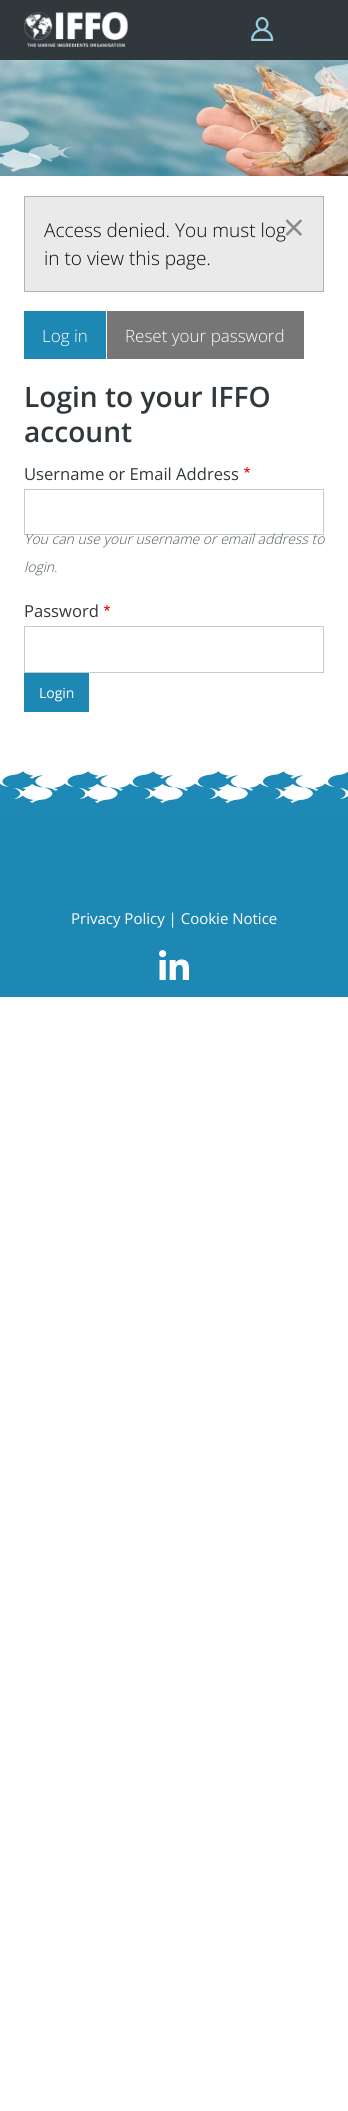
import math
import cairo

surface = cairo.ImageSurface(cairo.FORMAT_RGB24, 348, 2111)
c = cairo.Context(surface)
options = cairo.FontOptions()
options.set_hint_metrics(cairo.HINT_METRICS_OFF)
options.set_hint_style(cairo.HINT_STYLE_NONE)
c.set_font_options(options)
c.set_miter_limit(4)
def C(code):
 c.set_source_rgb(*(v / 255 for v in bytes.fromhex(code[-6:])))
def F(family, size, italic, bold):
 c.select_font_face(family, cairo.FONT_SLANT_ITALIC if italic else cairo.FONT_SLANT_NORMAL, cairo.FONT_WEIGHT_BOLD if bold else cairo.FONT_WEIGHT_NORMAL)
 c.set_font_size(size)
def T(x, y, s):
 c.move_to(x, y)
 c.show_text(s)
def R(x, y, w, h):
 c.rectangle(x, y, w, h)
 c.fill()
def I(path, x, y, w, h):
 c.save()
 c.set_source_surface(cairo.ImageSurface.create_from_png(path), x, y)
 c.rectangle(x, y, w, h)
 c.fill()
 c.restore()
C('ffffff')
c.paint()
C('30383c')
R(0,0,348,60)
I('1.png',24,11,104,36)
I('2.png',251,17,23,24)
I('3.png',0,60,348,116)
C('eaeaea')
c.rectangle(24.5,196.5,299,95)
c.fill_preserve()
C('b2b2b2')
c.set_line_width(1)
c.stroke()
F('Open Sans Light',19,0,0)
C('0a0a0a')
T(44,237,'Access denied. You must log')
F('Open Sans',38,0,0)
C('8a8a8a')
T(283,241,'×')
F('Open Sans Light',19,0,0)
C('0a0a0a')
T(44,265,'in to view this page.')
C('1e88b5')
R(24,311,82,48)
F('Open Sans Light',17,0,0)
C('ffffff')
T(42,342,'Log in')
C('767676')
R(107,311,197,48)
C('ffffff')
T(125,342,'Reset your password')
F('Open Sans SemiBold',28.1,0,0)
C('30383c')
T(24,407,'Login to your IFFO')
T(24,442,'account')
F('Open Sans',16.6,0,0)
T(24,480,'Username or Email Address')
I('4.png',244,467,6,6)
c.rectangle(24.5,489.5,299,45)
C('cacaca')
c.stroke()
F('Open Sans Light',14,1,0)
C('49585c')
T(24,544,'You can use your username or email address to')
T(24,572,'login.')
F('Open Sans',16.6,0,0)
C('30383c')
T(24,617,'Password')
I('4.png',104,605,6,6)
c.rectangle(24.5,626.5,299,46)
C('cacaca')
c.stroke()
C('1e88b5')
R(24,673,65,39)
F('Open Sans',14,0,0)
C('ffffff')
T(39,698,'Login')
I('5.png',0,771,348,40)
C('1e88b5')
R(0,811,348,186)
F('Open Sans',15,0,0)
C('ffffff')
T(71,924,'Privacy Policy | Cookie Notice')
I('6.png',159,950,30,30)
surface.write_to_png('o.png')
